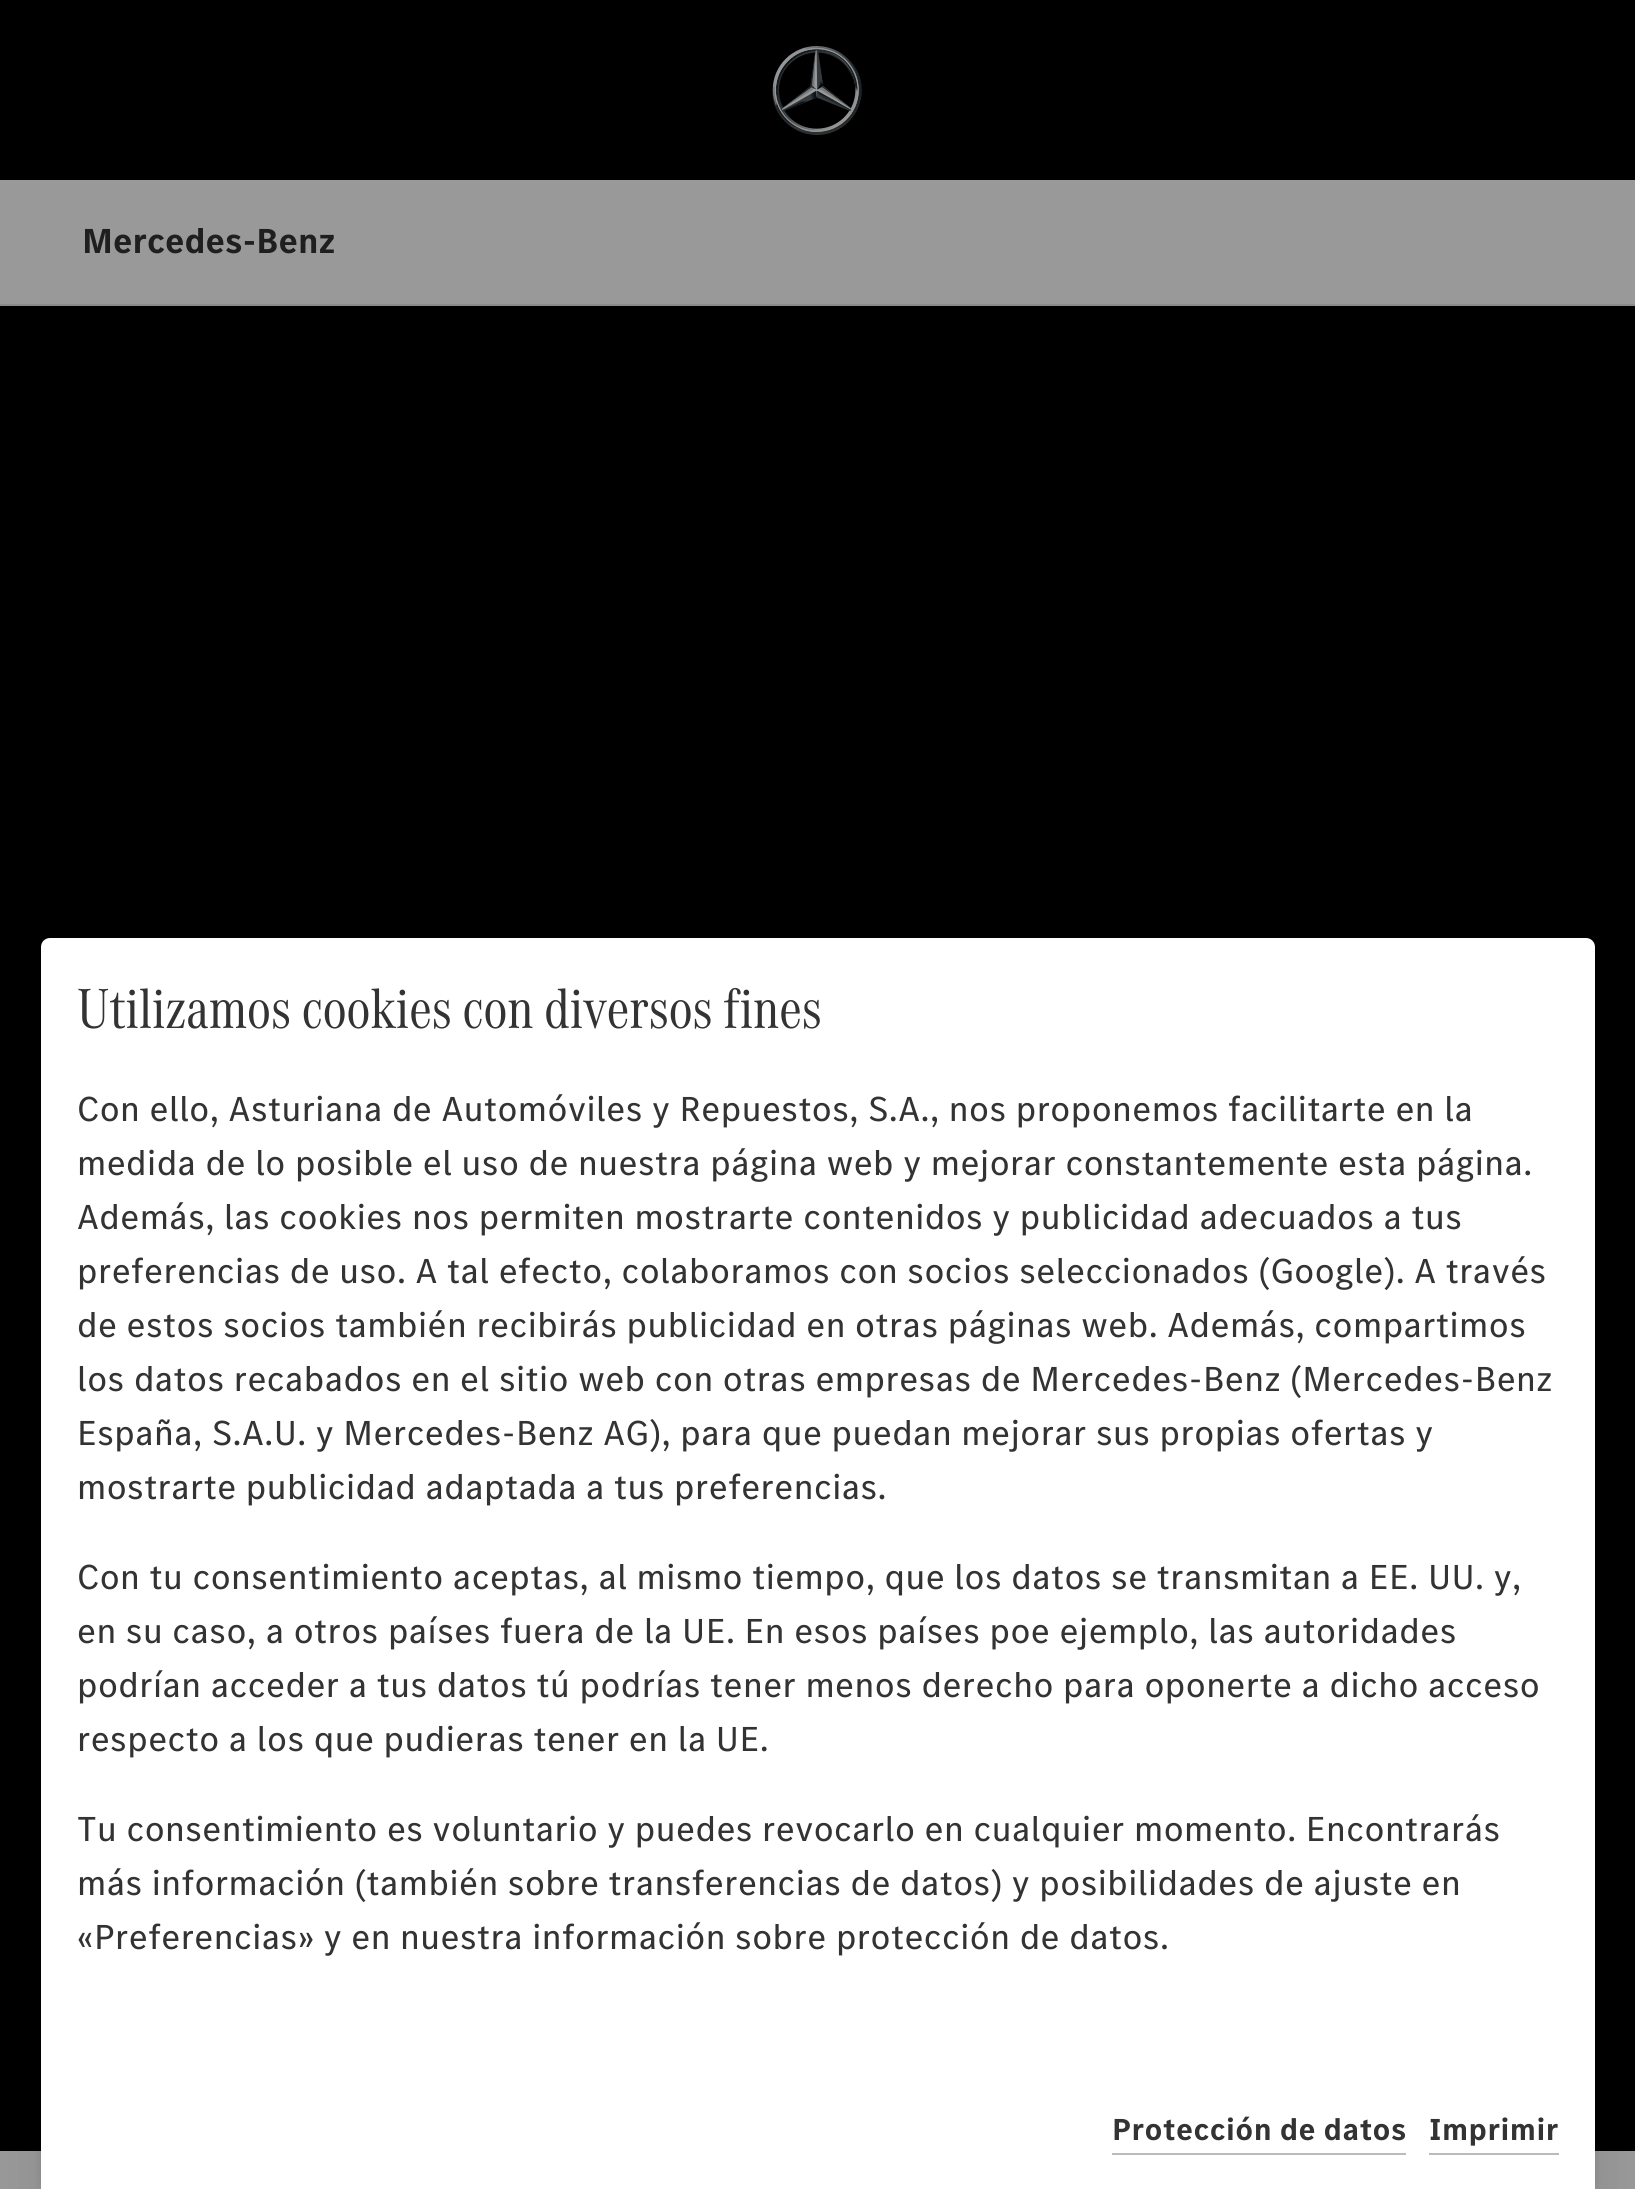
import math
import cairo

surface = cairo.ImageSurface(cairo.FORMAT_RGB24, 1635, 2189)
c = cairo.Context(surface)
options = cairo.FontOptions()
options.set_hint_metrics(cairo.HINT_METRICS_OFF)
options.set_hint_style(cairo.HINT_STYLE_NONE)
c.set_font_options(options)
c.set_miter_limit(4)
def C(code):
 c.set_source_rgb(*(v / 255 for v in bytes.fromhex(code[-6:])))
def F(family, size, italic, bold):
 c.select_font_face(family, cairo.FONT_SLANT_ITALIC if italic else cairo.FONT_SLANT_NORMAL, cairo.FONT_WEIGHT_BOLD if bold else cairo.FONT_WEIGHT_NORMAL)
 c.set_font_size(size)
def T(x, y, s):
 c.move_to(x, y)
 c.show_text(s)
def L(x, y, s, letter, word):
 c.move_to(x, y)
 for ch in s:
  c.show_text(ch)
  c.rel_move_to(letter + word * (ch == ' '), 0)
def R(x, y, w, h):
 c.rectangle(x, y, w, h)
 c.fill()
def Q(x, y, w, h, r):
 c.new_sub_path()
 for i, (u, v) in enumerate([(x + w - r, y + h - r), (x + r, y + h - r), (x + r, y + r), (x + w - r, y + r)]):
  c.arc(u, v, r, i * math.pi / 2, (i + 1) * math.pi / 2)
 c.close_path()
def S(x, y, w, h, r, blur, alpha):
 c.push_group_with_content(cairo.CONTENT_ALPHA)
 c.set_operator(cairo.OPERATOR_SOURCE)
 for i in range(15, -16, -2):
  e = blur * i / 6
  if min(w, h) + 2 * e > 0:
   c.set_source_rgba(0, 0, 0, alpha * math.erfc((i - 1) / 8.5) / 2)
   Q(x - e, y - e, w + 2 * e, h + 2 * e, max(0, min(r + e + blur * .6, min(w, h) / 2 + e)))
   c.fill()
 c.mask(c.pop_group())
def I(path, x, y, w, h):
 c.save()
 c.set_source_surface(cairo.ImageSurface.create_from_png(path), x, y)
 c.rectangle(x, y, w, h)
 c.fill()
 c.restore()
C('999999')
c.paint()
C('000000')
R(0,0,1635,180)
I('1.png',772,46,90,89)
C('8b8b8b')
R(0,304,1635,2)
F('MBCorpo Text',36,0,1)
C('1f1f1f')
T(82,253,'Mercedes-Benz')
C('000000')
R(0,306,1635,1845)
C('000000')
S(41,974,1554,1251,9,27,.1)
S(41,938,1554,1251,9,4.5,.1)
C('ffffff')
c.new_path()
c.move_to(50,938)
c.line_to(1586,938)
c.curve_to(1591,938,1595,942,1595,947)
c.line_to(1595,2189)
c.line_to(41,2189)
c.line_to(41,947)
c.curve_to(41,942,45,938,50,938)
c.close_path()
c.fill()
F('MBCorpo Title',58.5,0,0)
C('333333')
T(77,1028,'Utilizamos cookies con diversos fines')
F('MBCorpo Text',36,0,0)
L(77,1121,'Con ello, Asturiana de Automóviles y Repuestos, S.A., nos proponemos facilitarte en la',.45,0)
L(77,1175,'medida de lo posible el uso de nuestra página web y mejorar constantemente esta página.',.45,0)
L(77,1229,'Además, las cookies nos permiten mostrarte contenidos y publicidad adecuados a tus',.45,0)
L(77,1283,'preferencias de uso. A tal efecto, colaboramos con socios seleccionados (Google). A través',.45,0)
L(77,1337,'de estos socios también recibirás publicidad en otras páginas web. Además, compartimos',.45,0)
L(77,1391,'los datos recabados en el sitio web con otras empresas de Mercedes-Benz (Mercedes-Benz',.45,0)
L(77,1445,'España, S.A.U. y Mercedes-Benz AG), para que puedan mejorar sus propias ofertas y',.45,0)
L(77,1499,'mostrarte publicidad adaptada a tus preferencias.',.45,0)
L(77,1589,'Con tu consentimiento aceptas, al mismo tiempo, que los datos se transmitan a EE. UU. y,',.45,0)
L(77,1643,'en su caso, a otros países fuera de la UE. En esos países poe ejemplo, las autoridades',.45,0)
L(77,1697,'podrían acceder a tus datos tú podrías tener menos derecho para oponerte a dicho acceso',.45,0)
L(77,1751,'respecto a los que pudieras tener en la UE.',.45,0)
L(77,1841,'Tu consentimiento es voluntario y puedes revocarlo en cualquier momento. Encontrarás',.45,0)
L(77,1895,'más información (también sobre transferencias de datos) y posibilidades de ajuste en',.45,0)
L(77,1949,'«Preferencias» y en nuestra información sobre protección de datos.',.45,0)
C('bbbbbb')
R(1112,2153,294,2)
F('MBCorpo Text',31.5,0,1)
C('333333')
L(1112,2140,'Protección de datos',.45,0)
C('bbbbbb')
R(1429,2153,130,2)
C('333333')
L(1429,2140,'Imprimir',.45,0)
surface.write_to_png('o.png')
